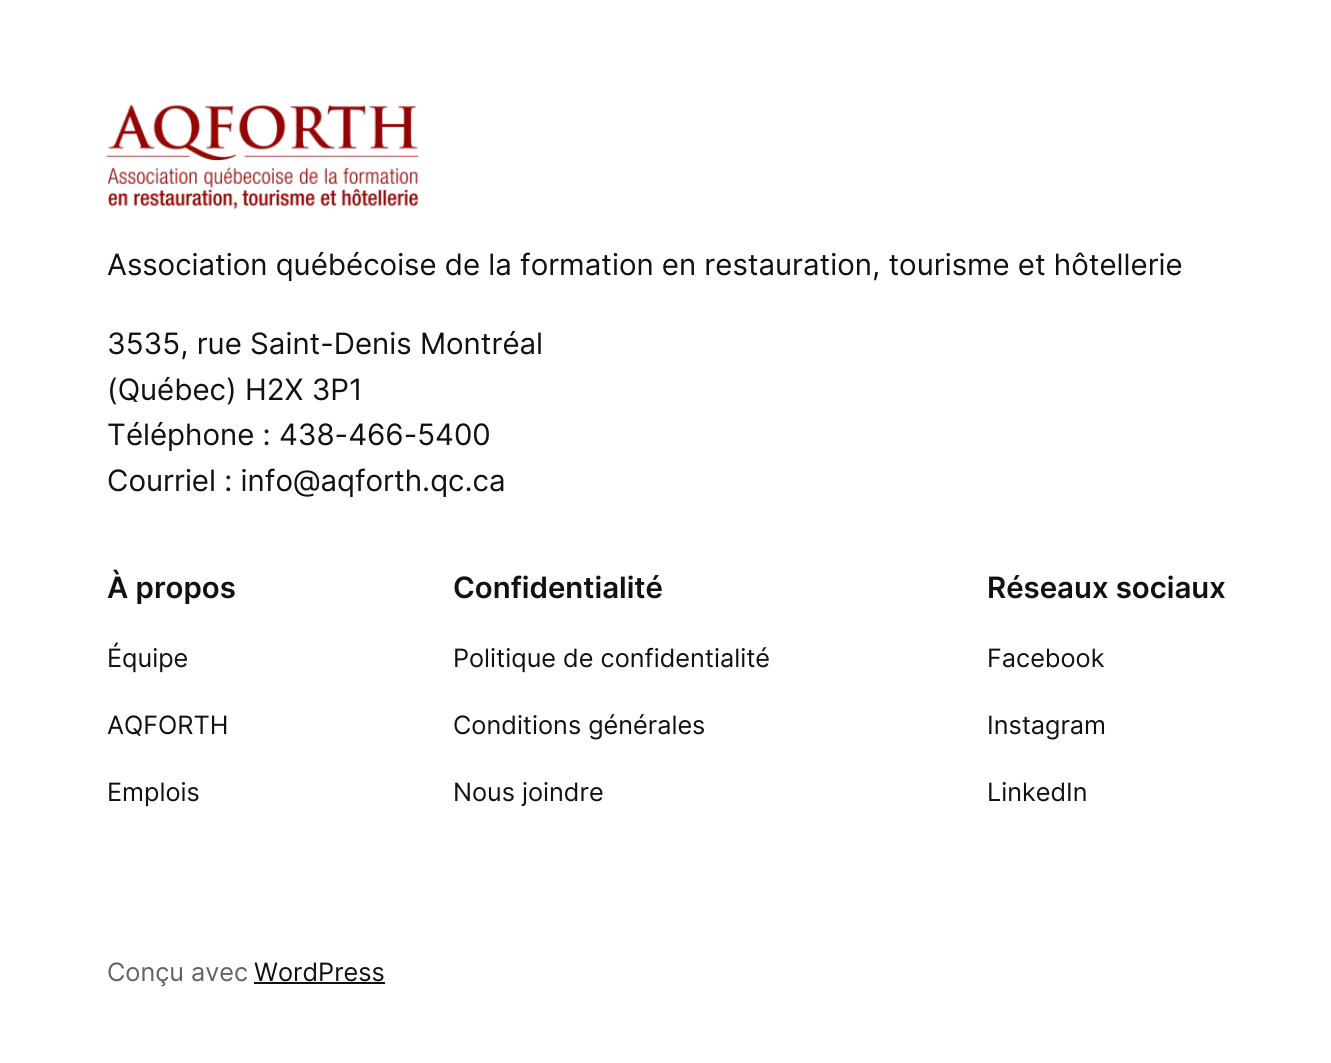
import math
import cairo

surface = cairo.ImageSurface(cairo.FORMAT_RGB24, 1331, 1063)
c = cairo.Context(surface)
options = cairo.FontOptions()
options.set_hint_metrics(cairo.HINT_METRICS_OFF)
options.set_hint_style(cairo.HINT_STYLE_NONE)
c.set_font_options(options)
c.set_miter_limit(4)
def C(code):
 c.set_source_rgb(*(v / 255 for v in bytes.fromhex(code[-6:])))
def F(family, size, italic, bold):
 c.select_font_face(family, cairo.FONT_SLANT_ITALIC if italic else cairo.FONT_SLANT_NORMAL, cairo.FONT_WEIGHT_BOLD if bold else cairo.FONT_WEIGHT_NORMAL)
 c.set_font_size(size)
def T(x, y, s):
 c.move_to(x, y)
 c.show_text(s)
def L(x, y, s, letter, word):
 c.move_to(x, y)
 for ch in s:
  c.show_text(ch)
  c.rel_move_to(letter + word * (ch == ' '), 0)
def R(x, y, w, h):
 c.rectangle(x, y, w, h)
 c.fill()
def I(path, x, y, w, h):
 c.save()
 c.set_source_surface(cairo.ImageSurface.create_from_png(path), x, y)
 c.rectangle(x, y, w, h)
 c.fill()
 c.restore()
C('ffffff')
c.paint()
I('1.png',106,105,313,104)
F('Inter',29.4,0,0)
C('111111')
L(107,275,'Association québécoise de la formation en restauration, tourisme et hôtellerie',0,-.1)
T(107,354,'3535, rue Saint-Denis Montréal')
T(107,400,'(Québec) H2X 3P1')
T(107,445,'Téléphone : 438-466-5400')
T(107,491,'Courriel : info@aqforth.qc.ca')
F('Inter SemiBold',29.4,0,0)
T(107,598,'À propos')
F('Inter',25.25,0,0)
T(107,667,'Équipe')
T(107,734,'AQFORTH')
T(107,801,'Emplois')
F('Inter SemiBold',29.4,0,0)
T(453,598,'Confidentialité')
F('Inter',25.25,0,0)
T(453,667,'Politique de confidentialité')
T(453,734,'Conditions générales')
T(453,801,'Nous joindre')
F('Inter SemiBold',29.4,0,0)
T(987,598,'Réseaux sociaux')
F('Inter',25.25,0,0)
T(987,667,'Facebook')
T(987,734,'Instagram')
T(987,801,'LinkedIn')
C('636363')
T(107,981,'Conçu avec')
C('111111')
T(254,981,'WordPress')
R(254,982,131,2)
surface.write_to_png('o.png')
